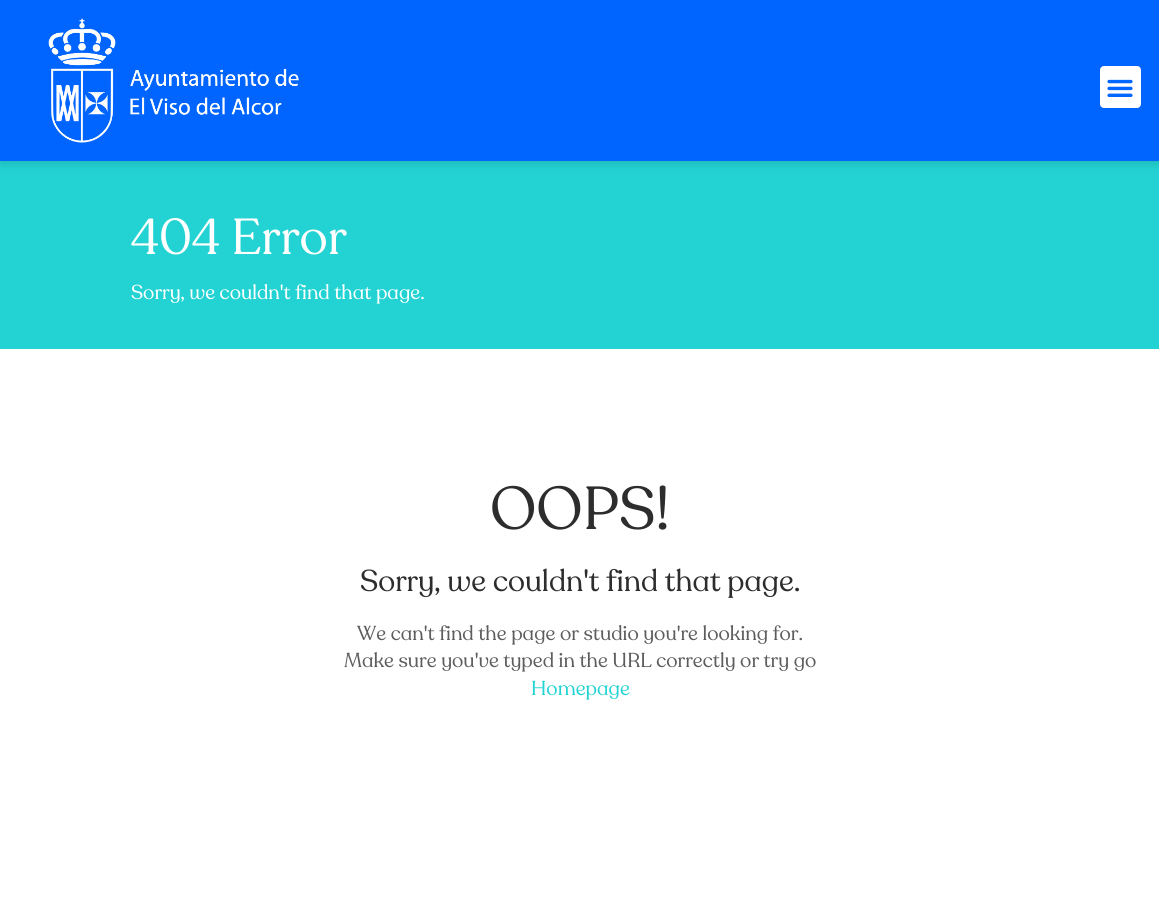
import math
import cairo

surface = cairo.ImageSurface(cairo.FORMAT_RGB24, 1159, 924)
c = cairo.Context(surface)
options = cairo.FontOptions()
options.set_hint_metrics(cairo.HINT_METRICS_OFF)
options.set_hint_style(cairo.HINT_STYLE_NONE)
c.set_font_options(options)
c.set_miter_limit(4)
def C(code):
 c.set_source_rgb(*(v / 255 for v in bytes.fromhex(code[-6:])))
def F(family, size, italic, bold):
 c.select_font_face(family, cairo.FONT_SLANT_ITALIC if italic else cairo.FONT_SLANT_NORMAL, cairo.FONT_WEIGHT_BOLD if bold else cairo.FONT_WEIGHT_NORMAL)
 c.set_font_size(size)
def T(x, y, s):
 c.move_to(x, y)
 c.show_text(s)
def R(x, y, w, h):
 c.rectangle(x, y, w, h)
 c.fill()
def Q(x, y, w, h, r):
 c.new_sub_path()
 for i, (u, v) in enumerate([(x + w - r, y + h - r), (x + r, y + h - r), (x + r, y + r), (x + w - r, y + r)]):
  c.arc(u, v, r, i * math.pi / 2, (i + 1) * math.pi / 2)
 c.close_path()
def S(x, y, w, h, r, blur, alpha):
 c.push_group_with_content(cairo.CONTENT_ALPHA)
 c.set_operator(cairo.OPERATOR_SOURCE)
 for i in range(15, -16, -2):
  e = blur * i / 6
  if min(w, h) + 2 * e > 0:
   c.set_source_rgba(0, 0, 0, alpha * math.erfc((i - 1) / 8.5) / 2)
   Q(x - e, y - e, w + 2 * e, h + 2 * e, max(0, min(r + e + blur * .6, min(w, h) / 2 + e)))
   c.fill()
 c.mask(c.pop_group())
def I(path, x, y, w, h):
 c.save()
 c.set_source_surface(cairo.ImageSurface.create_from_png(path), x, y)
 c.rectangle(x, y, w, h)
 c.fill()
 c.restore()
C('ffffff')
c.paint()
C('23d3d3')
R(0,161,1159,188)
C('000000')
S(0,0,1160,161,0,6,.21)
C('0065ff')
R(0,0,1159,161)
I('1.png',48,18,251,125)
C('ffffff')
Q(1100,66,41,42,4)
c.fill()
I('2.png',1107,79,26,18)
F('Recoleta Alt',50,0,0)
T(131,254,'404 Error')
F('Recoleta Alt',20,0,0)
T(131,299,'Sorry, we couldn\'t find that page.')
F('Recoleta Alt',60,0,0)
C('2d2d2d')
T(490,529,'OOPS!')
F('Recoleta Alt',30,0,0)
T(360,591,'Sorry, we couldn\'t find that page.')
F('Recoleta Alt',20,0,0)
C('5d5d5d')
T(357,640,'We can\'t find the page or studio you\'re looking for.')
T(344,667,'Make sure you\'ve typed in the URL correctly or try go')
C('23d3d3')
T(531,695,'Homepage')
surface.write_to_png('o.png')
